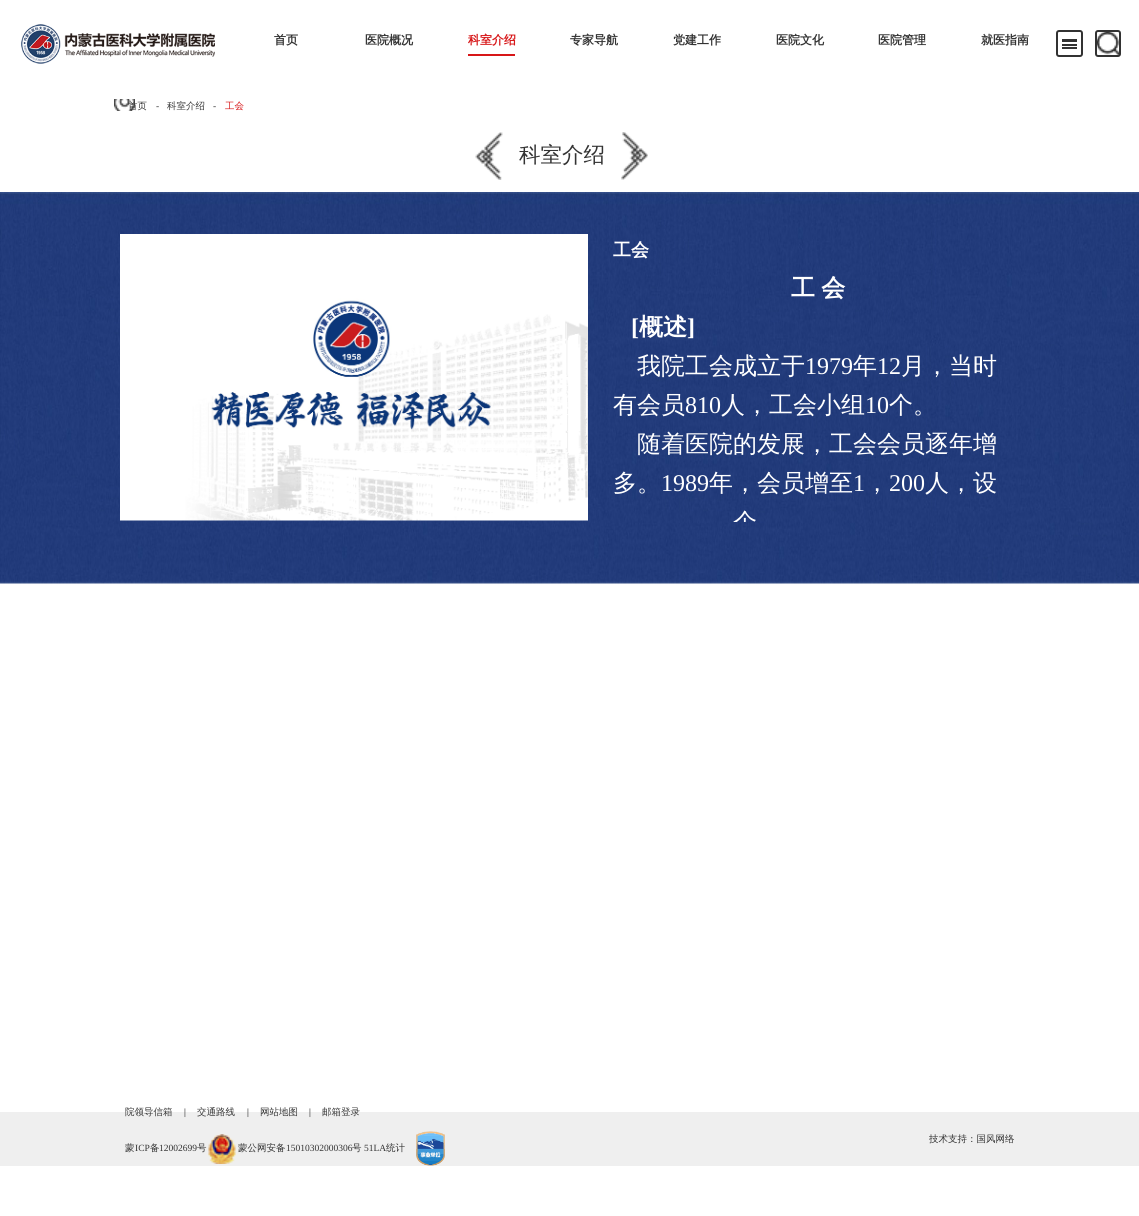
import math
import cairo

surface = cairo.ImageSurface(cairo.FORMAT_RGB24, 1139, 1216)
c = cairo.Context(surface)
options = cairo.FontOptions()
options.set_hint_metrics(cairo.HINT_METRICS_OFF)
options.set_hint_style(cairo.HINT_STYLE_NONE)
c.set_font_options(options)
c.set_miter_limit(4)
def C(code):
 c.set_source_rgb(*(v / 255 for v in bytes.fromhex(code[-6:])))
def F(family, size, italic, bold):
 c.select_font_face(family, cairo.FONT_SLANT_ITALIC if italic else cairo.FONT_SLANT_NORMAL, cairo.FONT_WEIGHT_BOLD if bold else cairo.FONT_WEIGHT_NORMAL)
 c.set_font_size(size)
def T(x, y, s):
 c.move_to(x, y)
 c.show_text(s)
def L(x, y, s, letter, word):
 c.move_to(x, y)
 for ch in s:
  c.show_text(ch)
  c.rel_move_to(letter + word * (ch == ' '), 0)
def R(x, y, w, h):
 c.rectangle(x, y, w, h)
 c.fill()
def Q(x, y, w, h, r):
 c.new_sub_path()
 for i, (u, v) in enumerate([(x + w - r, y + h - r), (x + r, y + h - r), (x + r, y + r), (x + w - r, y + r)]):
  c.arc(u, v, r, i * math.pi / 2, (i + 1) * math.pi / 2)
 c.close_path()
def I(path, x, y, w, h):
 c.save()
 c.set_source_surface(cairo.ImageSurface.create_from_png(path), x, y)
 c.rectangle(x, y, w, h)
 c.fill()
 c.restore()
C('ffffff')
c.paint()
I('1.png',21,24,194,40)
F('WenQuanYi Zen Hei',12,0,1)
C('333333')
T(274,44,'首页')
T(365,44,'医院概况')
C('d71618')
R(468,54,47,2)
T(468,44,'科室介绍')
C('333333')
T(570,44,'专家导航')
T(673,44,'党建工作')
T(776,44,'医院文化')
T(878,44,'医院管理')
T(981,44,'就医指南')
Q(1057,31,25,25,2)
C('323232')
c.stroke()
R(1062,39,15,3)
R(1062,44,15,2)
R(1062,47,15,2)
I('2.png',1097,32,24,24)
Q(1096,31,24,25,2)
c.stroke()
I('3.png',114,99,21,12)
F('WenQuanYi Zen Hei Medium',9.5,0,0)
C('333333')
T(128,109,'首页')
F('Liberation Serif',9.5,0,0)
T(156,109,'-')
F('WenQuanYi Zen Hei Medium',9.5,0,0)
T(167,109,'科室介绍')
F('Liberation Serif',9.5,0,0)
T(213,109,'-')
F('WenQuanYi Zen Hei Medium',9.5,0,0)
C('d71618')
T(225,109,'工会')
I('4.png',475,132,28,48)
F('WenQuanYi Zen Hei Medium',21.5,0,0)
C('333333')
T(519,162,'科室介绍')
I('5.png',621,132,27,48)
I('6.png',0,192,1139,392)
I('7.png',120,234,468,287)
F('WenQuanYi Zen Hei',18,0,1)
C('ffffff')
T(613,256,'工会')
F('WenQuanYi Zen Hei',24,0,1)
L(791,296,'工 会',0,-1)
F('Liberation Serif',24,0,1)
T(631,335,'[')
F('WenQuanYi Zen Hei',24,0,1)
T(639,335,'概述')
F('Liberation Serif',24,0,1)
T(687,335,']')
F('WenQuanYi Zen Hei Medium',24,0,0)
T(637,374,'我院工会成立于')
F('Liberation Serif',24,0,0)
T(805,374,'1979')
F('WenQuanYi Zen Hei Medium',24,0,0)
T(853,374,'年')
F('Liberation Serif',24,0,0)
T(877,374,'12')
F('WenQuanYi Zen Hei Medium',24,0,0)
T(901,374,'月，当时')
T(613,413,'有会员')
F('Liberation Serif',24,0,0)
T(685,413,'810')
F('WenQuanYi Zen Hei Medium',24,0,0)
T(721,413,'人，工会小组')
F('Liberation Serif',24,0,0)
T(865,413,'10')
F('WenQuanYi Zen Hei Medium',24,0,0)
T(889,413,'个。')
T(637,452,'随着医院的发展，工会会员逐年增')
T(613,491,'多。')
F('Liberation Serif',24,0,0)
T(661,491,'1989')
F('WenQuanYi Zen Hei Medium',24,0,0)
T(709,491,'年，会员增至')
F('Liberation Serif',24,0,0)
T(853,491,'1')
F('WenQuanYi Zen Hei Medium',24,0,0)
T(865,491,'，')
F('Liberation Serif',24,0,0)
T(889,491,'200')
F('WenQuanYi Zen Hei Medium',24,0,0)
T(925,491,'人，设')
c.save()
c.rectangle(614,267,406,255)
c.clip()
T(733,530,'个')
c.restore()
C('efefef')
R(0,1112,1139,54)
F('WenQuanYi Zen Hei Medium',9.5,0,0)
C('333333')
T(125,1115,'院领导信箱')
F('Liberation Serif',9.5,0,0)
C('000000')
T(184,1115,'|')
F('WenQuanYi Zen Hei Medium',9.5,0,0)
C('333333')
T(197,1115,'交通路线')
F('Liberation Serif',9.5,0,0)
C('000000')
T(247,1115,'|')
F('WenQuanYi Zen Hei Medium',9.5,0,0)
C('333333')
T(260,1115,'网站地图')
F('Liberation Serif',9.5,0,0)
C('000000')
T(309,1115,'|')
F('WenQuanYi Zen Hei Medium',9.5,0,0)
C('333333')
T(322,1115,'邮箱登录')
T(125,1151,'蒙')
F('Liberation Serif',9.5,0,0)
T(135,1151,'ICP')
F('WenQuanYi Zen Hei Medium',9.5,0,0)
T(150,1151,'备')
F('Liberation Serif',9.5,0,0)
T(159,1151,'12002699')
F('WenQuanYi Zen Hei Medium',9.5,0,0)
T(197,1151,'号')
I('8.png',208,1134,28,30)
T(238,1151,'蒙公网安备')
F('Liberation Serif',9.5,0,0)
T(286,1151,'15010302000306')
F('WenQuanYi Zen Hei Medium',9.5,0,0)
T(352,1151,'号')
F('Liberation Serif',9.5,0,0)
T(364,1151,'51LA')
F('WenQuanYi Zen Hei Medium',9.5,0,0)
T(386,1151,'统计')
I('9.png',416,1131,29,35)
T(929,1142,'技术支持：国风网络')
surface.write_to_png('o.png')
